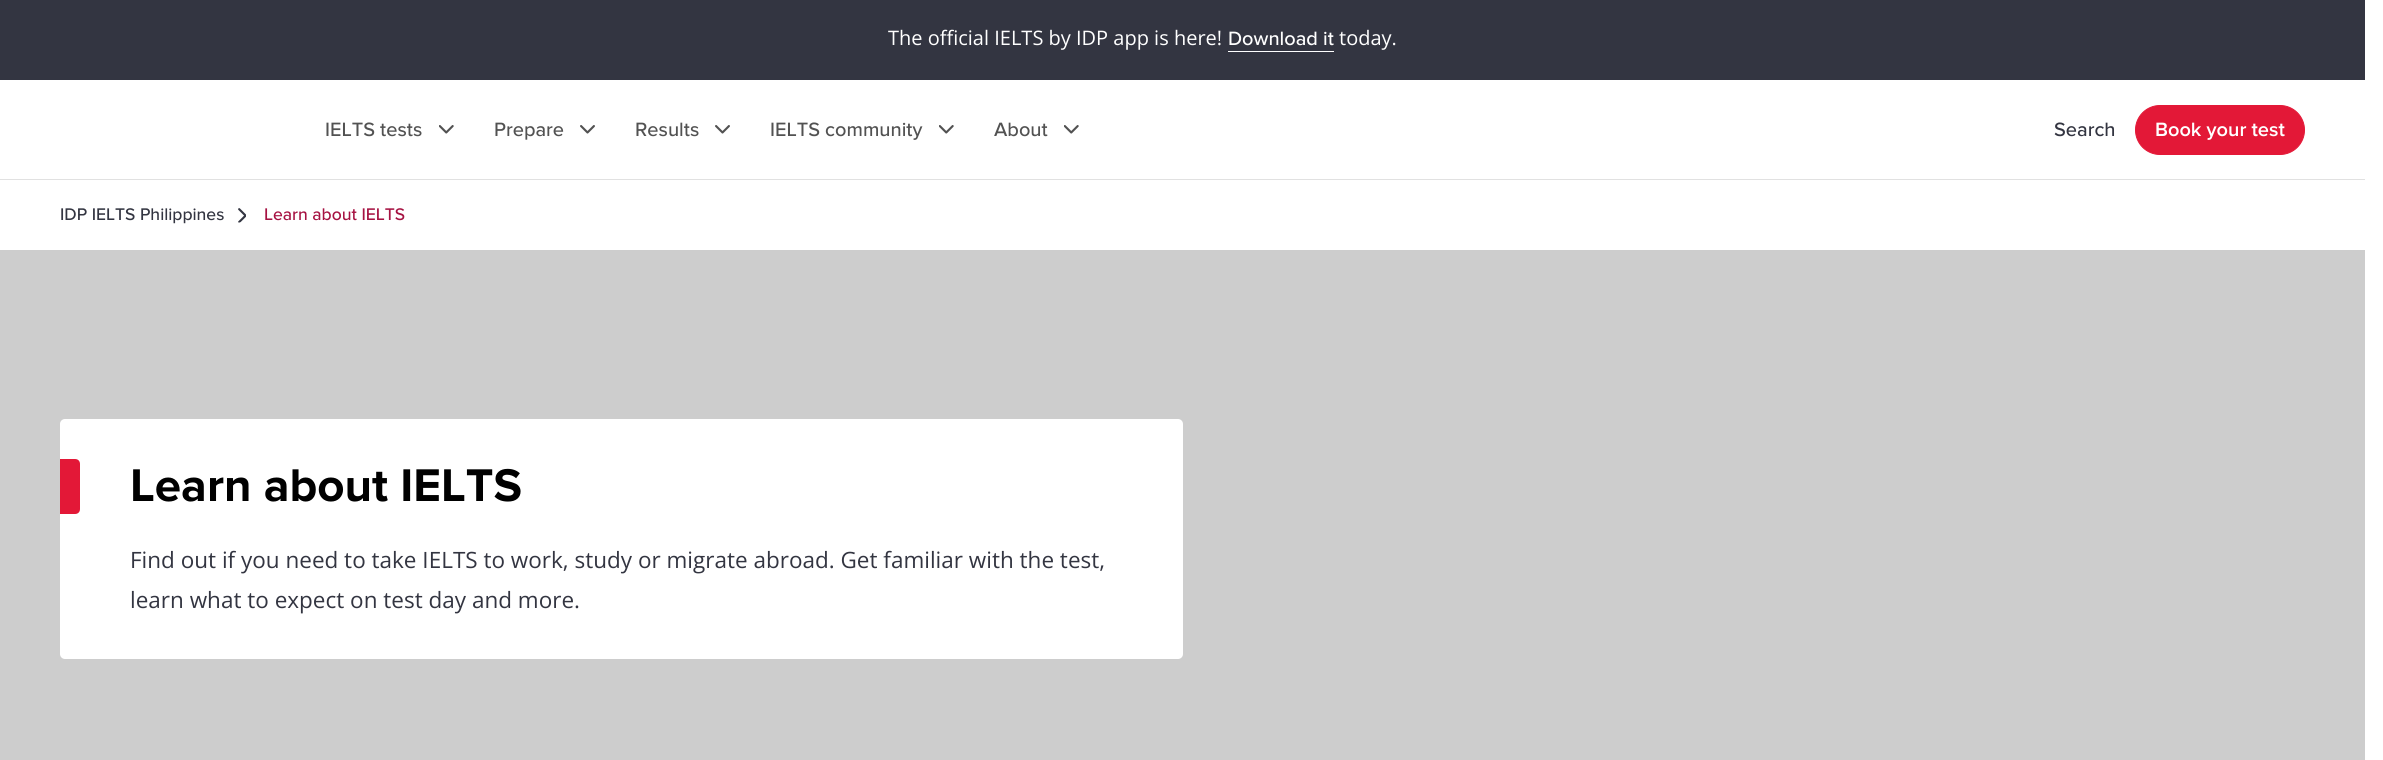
import math
import cairo

surface = cairo.ImageSurface(cairo.FORMAT_RGB24, 2383, 760)
c = cairo.Context(surface)
options = cairo.FontOptions()
options.set_hint_metrics(cairo.HINT_METRICS_OFF)
options.set_hint_style(cairo.HINT_STYLE_NONE)
c.set_font_options(options)
c.set_miter_limit(4)
def C(code):
 c.set_source_rgb(*(v / 255 for v in bytes.fromhex(code[-6:])))
def F(family, size, italic, bold):
 c.select_font_face(family, cairo.FONT_SLANT_ITALIC if italic else cairo.FONT_SLANT_NORMAL, cairo.FONT_WEIGHT_BOLD if bold else cairo.FONT_WEIGHT_NORMAL)
 c.set_font_size(size)
def T(x, y, s):
 c.move_to(x, y)
 c.show_text(s)
def R(x, y, w, h):
 c.rectangle(x, y, w, h)
 c.fill()
def Q(x, y, w, h, r):
 c.new_sub_path()
 for i, (u, v) in enumerate([(x + w - r, y + h - r), (x + r, y + h - r), (x + r, y + r), (x + w - r, y + r)]):
  c.arc(u, v, r, i * math.pi / 2, (i + 1) * math.pi / 2)
 c.close_path()
def I(path, x, y, w, h):
 c.save()
 c.set_source_surface(cairo.ImageSurface.create_from_png(path), x, y)
 c.rectangle(x, y, w, h)
 c.fill()
 c.restore()
C('ffffff')
c.paint()
C('333541')
R(0,0,2365,80)
F('Open Sans',20,0,0)
C('ffffff')
T(888,45,'The official IELTS by IDP app is here!')
R(1228,51,106,1)
F('Proxima Nova Medium',20,0,0)
T(1228,45,'Download it')
F('Open Sans',20,0,0)
T(1339,45,'today.')
C('e1e1e1')
R(0,179,2365,1)
F('Proxima Nova Medium',20,0,0)
C('525252')
T(325,136,'IELTS tests')
I('1.png',439,125,15,9)
T(494,136,'Prepare')
I('2.png',580,125,15,9)
T(635,136,'Results')
I('2.png',715,125,15,9)
T(770,136,'IELTS community')
I('1.png',939,125,15,9)
T(994,136,'About')
I('1.png',1064,125,15,9)
C('333541')
T(2054,136,'Search')
C('e31837')
Q(2135.5,105.5,169,49,24.5)
c.fill_preserve()
c.set_line_width(1)
c.stroke()
F('Proxima Nova SemiBold',20,0,0)
C('ffffff')
T(2155,136,'Book your test')
F('Proxima Nova Medium',17.5,0,0)
C('333541')
T(60,220,'IDP IELTS Philippines')
I('3.png',238,208,8,15)
C('a61242')
T(264,220,'Learn about IELTS')
C('cdcdcd')
R(0,250,2365,510)
C('ffffff')
Q(60,419,1123,240,5)
c.fill()
C('e31837')
c.new_path()
c.move_to(60,459)
c.line_to(75,459)
c.curve_to(78,459,80,461,80,464)
c.line_to(80,509)
c.curve_to(80,512,78,514,75,514)
c.line_to(60,514)
c.close_path()
c.fill()
F('Proxima Nova',47.5,0,1)
C('000000')
T(130,501,'Learn about IELTS')
F('Open Sans',22.5,0,0)
C('333541')
T(130,568,'Find out if you need to take IELTS to work, study or migrate abroad. Get familiar with the test,')
T(130,608,'learn what to expect on test day and more.')
surface.write_to_png('o.png')
